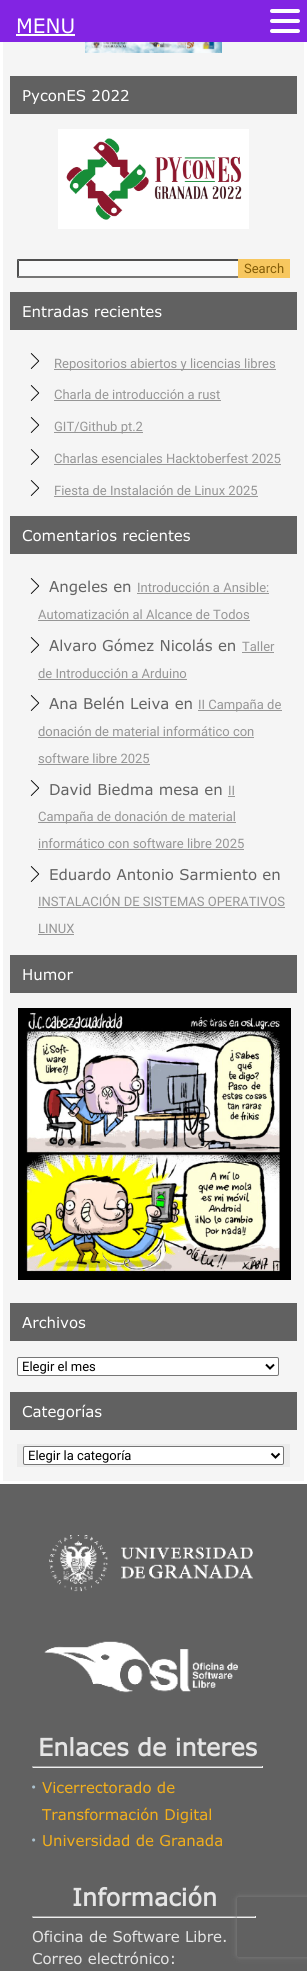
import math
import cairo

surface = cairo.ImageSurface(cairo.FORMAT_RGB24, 307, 1971)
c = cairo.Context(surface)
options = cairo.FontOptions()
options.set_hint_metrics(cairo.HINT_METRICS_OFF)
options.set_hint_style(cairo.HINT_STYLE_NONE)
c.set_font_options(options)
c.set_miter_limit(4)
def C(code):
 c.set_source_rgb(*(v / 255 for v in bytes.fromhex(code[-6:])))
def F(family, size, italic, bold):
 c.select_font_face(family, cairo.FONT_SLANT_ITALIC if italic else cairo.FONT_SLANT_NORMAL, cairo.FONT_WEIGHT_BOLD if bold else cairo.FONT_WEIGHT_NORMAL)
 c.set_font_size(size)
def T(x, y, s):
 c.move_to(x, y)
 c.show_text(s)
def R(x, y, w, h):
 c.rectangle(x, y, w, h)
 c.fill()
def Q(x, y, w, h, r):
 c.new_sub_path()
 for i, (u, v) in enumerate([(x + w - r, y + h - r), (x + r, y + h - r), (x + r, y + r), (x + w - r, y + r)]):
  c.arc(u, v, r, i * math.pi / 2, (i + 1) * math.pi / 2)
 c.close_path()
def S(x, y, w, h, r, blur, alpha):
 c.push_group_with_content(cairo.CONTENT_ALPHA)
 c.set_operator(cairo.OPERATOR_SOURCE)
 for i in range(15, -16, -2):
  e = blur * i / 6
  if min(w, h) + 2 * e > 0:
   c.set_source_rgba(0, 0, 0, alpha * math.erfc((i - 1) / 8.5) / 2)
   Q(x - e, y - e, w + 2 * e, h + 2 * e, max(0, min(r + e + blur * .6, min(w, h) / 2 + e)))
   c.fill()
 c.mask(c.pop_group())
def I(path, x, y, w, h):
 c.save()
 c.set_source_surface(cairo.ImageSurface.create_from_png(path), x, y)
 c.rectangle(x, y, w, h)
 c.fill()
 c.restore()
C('ffffff')
c.paint()
C('8224e3')
R(0,0,307,42)
F('Verdana',20,0,0)
C('ffffff')
T(16,33,'MENU')
R(16,34,59,2)
Q(270,9,30,4,2)
c.fill()
Q(270,19,30,4,2)
c.fill()
Q(270,29,30,4,2)
c.fill()
C('f5f5f5')
R(3,42,301,1439)
I('1.png',85,42,137,11)
C('616161')
R(10,76,287,38)
F('Verdana',15,0,0)
C('ffffff')
T(22,101,'PyconES 2022')
I('2.png',58,129,191,100)
C('f9fafb')
R(17,259,221,19)
C('4f4f4f')
c.new_path()
c.move_to(17,259)
c.line_to(290,259)
c.line_to(288,261)
c.line_to(19,261)
c.close_path()
c.fill()
C('767676')
c.new_path()
c.move_to(290,278)
c.line_to(17,278)
c.line_to(19,276)
c.line_to(288,276)
c.close_path()
c.fill()
C('4f4f4f')
c.new_path()
c.move_to(17,278)
c.line_to(17,259)
c.line_to(19,261)
c.line_to(19,276)
c.close_path()
c.fill()
C('f7c75f')
R(238,259,52,19)
F('Roboto',13,0,0)
C('835c07')
T(244,273,'Search')
C('616161')
R(10,292,287,38)
F('Verdana',15,0,0)
C('ffffff')
T(22,317,'Entradas recientes')
I('3.png',30,353,10,16)
C('969696')
R(54,369,222,1)
F('Roboto',13,0,0)
T(54,368,'Repositorios abiertos y licencias libres')
I('3.png',30,385,10,16)
T(54,399,'Charla de introducción a rust')
R(54,400,167,1)
I('3.png',30,417,10,16)
R(54,432,89,1)
T(54,431,'GIT/Github pt.2')
I('3.png',30,449,10,16)
T(54,463,'Charlas esenciales Hacktoberfest 2025')
R(54,464,227,1)
I('3.png',30,480,10,16)
T(54,495,'Fiesta de Instalación de Linux 2025')
R(54,496,204,1)
C('616161')
R(10,516,287,38)
F('Verdana',15,0,0)
C('ffffff')
T(22,541,'Comentarios recientes')
I('3.png',30,578,10,16)
C('636363')
T(49,592,'Angeles en')
F('Roboto',13,0,0)
C('969696')
T(137,592,'Introducción a Ansible:')
R(137,593,132,1)
T(38,619,'Automatización al Alcance de Todos')
R(38,620,212,1)
I('3.png',30,637,10,16)
F('Verdana',15,0,0)
C('636363')
T(49,651,'Alvaro Gómez Nicolás en')
F('Roboto',13,0,0)
C('969696')
T(242,651,'Taller')
R(242,652,32,1)
T(38,678,'de Introducción a Arduino')
R(38,679,149,1)
I('3.png',30,695,10,16)
F('Verdana',15,0,0)
C('636363')
T(49,709,'Ana Belén Leiva en')
C('969696')
R(198,710,84,1)
F('Roboto',13,0,0)
T(198,709,'II Campaña de')
T(38,736,'donación de material informático con')
R(38,737,216,1)
T(38,763,'software libre 2025')
R(38,764,112,1)
I('3.png',30,780,10,16)
F('Verdana',15,0,0)
C('636363')
T(49,795,'David Biedma mesa en')
F('Roboto',13,0,0)
C('969696')
T(228,795,'II')
R(228,796,7,1)
R(38,822,198,1)
T(38,821,'Campaña de donación de material')
T(38,848,'informático con software libre 2025')
R(38,849,206,1)
I('3.png',30,866,10,16)
F('Verdana',15,0,0)
C('636363')
T(49,880,'Eduardo Antonio Sarmiento en')
F('Roboto',13,0,0)
C('969696')
T(38,906,'INSTALACIÓN DE SISTEMAS OPERATIVOS')
R(38,907,247,1)
T(38,933,'LINUX')
R(38,934,36,1)
C('616161')
R(10,955,287,38)
F('Verdana',15,0,0)
C('ffffff')
T(22,980,'Humor')
I('4.png',18,1008,273,272)
C('616161')
R(10,1303,287,38)
C('ffffff')
T(22,1328,'Archivos')
Q(17.5,1357.5,261,18,1.5)
c.fill_preserve()
C('767676')
c.set_line_width(1)
c.stroke()
c.new_path()
c.move_to(266,1364.5)
c.line_to(270,1368.5)
c.line_to(274,1364.5)
C('000000')
c.set_line_width(2)
c.stroke()
F('Roboto',13,0,0)
T(22,1371,'Elegir el mes')
C('616161')
R(10,1392,287,38)
F('Verdana',15,0,0)
C('ffffff')
T(22,1417,'Categorías')
C('ececec')
R(17,1444,273,23)
C('ffffff')
Q(23.5,1446.5,260,18,1.5)
c.fill_preserve()
C('767676')
c.set_line_width(1)
c.stroke()
c.new_path()
c.move_to(271.5,1453.5)
c.line_to(275.5,1457.5)
c.line_to(279.5,1453.5)
C('000000')
c.set_line_width(2)
c.stroke()
F('Roboto',13,0,0)
T(28,1460,'Elegir la categoría')
C('616161')
R(0,1484,307,487)
I('5.png',49,1535,204,57)
I('6.png',44,1641,194,52)
F('Verdana',24,0,1)
C('e5e5e5')
T(38,1756,'Enlaces de interes')
C('9f9f9f')
R(32,1766,231,1)
C('eeeeee')
R(262,1766,1,2)
R(32,1767,231,1)
C('9f9f9f')
R(32,1766,1,2)
I('7.png',32,1785,4,4)
F('Verdana',15,0,0)
C('f3af1b')
T(42,1793,'Vicerrectorado de')
T(42,1820,'Transformación Digital')
I('7.png',32,1838,4,4)
T(42,1846,'Universidad de Granada')
F('Verdana',24,0,1)
C('e5e5e5')
T(72,1906,'Información')
C('9f9f9f')
R(32,1916,224,1)
C('eeeeee')
R(255,1916,1,2)
R(32,1917,224,1)
C('9f9f9f')
R(32,1916,1,2)
F('Verdana',15,0,0)
C('e5e5e5')
T(32,1942,'Oficina de Software Libre.')
T(32,1964,'Correo electrónico:')
c.save()
c.set_fill_rule(cairo.FILL_RULE_EVEN_ODD)
c.new_path()
c.move_to(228,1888)
c.line_to(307,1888)
c.line_to(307,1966)
c.line_to(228,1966)
c.close_path()
c.move_to(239,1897)
c.line_to(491,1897)
c.curve_to(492,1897,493,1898,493,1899)
c.line_to(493,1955)
c.curve_to(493,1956,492,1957,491,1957)
c.line_to(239,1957)
c.curve_to(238,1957,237,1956,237,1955)
c.line_to(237,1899)
c.curve_to(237,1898,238,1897,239,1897)
c.close_path()
c.clip()
C('808080')
S(237,1897,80,60,2,2.5,1)
c.restore()
surface.write_to_png('o.png')
